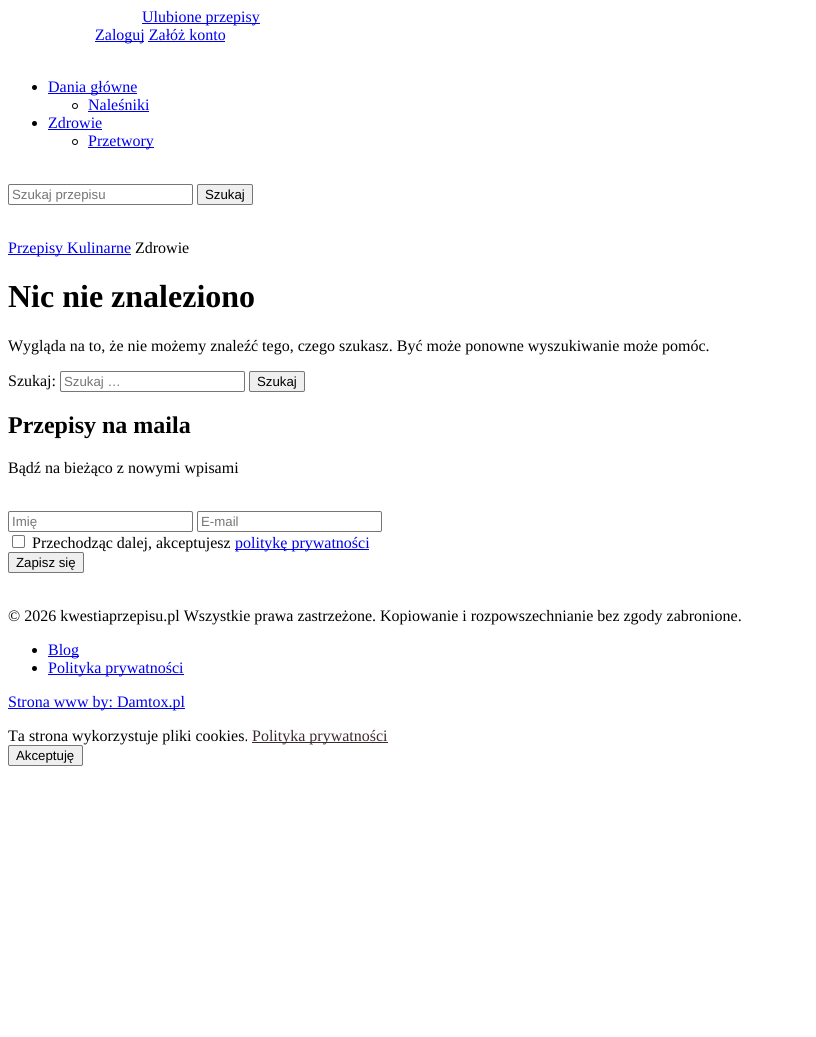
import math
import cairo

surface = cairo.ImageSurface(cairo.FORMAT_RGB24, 816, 1037)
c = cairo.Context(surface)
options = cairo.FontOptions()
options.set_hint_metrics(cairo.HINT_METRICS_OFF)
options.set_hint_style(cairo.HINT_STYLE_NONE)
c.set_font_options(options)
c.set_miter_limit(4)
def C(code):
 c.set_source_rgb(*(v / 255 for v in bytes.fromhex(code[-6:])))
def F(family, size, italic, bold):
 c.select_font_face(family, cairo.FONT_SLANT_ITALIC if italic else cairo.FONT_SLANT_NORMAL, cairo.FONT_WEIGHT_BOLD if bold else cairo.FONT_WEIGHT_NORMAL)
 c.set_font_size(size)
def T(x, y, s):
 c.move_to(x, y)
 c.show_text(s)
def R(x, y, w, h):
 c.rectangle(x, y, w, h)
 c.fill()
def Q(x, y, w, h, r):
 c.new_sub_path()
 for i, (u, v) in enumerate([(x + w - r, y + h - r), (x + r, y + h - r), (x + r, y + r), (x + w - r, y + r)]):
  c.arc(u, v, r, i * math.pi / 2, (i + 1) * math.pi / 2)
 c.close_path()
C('ffffff')
c.paint()
C('0000ee')
R(142,23,118,1)
F('Liberation Serif',16,0,0)
T(142,22,'Ulubione przepisy')
R(95,41,49,1)
T(95,40,'Zaloguj Załóż konto')
R(148,41,77,1)
C('000000')
c.new_path()
c.arc(34.5,87.5,2.5,0,2 * math.pi)
c.fill()
C('0000ee')
R(48,93,89,1)
T(48,92,'Dania główne')
c.new_path()
c.arc(75,106,2.5,0,2 * math.pi)
C('000000')
c.set_line_width(1)
c.stroke()
C('0000ee')
T(88,110,'Naleśniki')
R(88,111,61,1)
C('000000')
c.new_path()
c.arc(34.5,123.5,2.5,0,2 * math.pi)
c.fill()
C('0000ee')
T(48,128,'Zdrowie')
R(48,129,54,1)
c.new_path()
c.arc(75,142,2.5,0,2 * math.pi)
C('000000')
c.stroke()
C('0000ee')
R(88,147,66,1)
T(88,146,'Przetwory')
Q(8.5,184.5,184,20,1.5)
C('767676')
c.stroke()
F('Liberation Sans',13.25,0,0)
C('757575')
T(12,199,'Szukaj przepisu')
C('efefef')
Q(197.5,184.5,55,20,1.5)
c.fill_preserve()
C('767676')
c.stroke()
C('000000')
T(205,199,'Szukaj')
C('0000ee')
R(8,254,123,1)
F('Liberation Serif',16,0,0)
T(8,253,'Przepisy Kulinarne')
C('000000')
T(135,253,'Zdrowie')
F('Liberation Serif',32,0,1)
T(8,307,'Nic nie znaleziono')
F('Liberation Serif',16,0,0)
T(8,351,'Wygląda na to, że nie możemy znaleźć tego, czego szukasz. Być może ponowne wyszukiwanie może pomóc.')
T(8,386,'Szukaj:')
Q(60.5,371.5,184,20,1.5)
C('767676')
c.stroke()
F('Liberation Sans',13.25,0,0)
C('757575')
T(64,386,'Szukaj …')
C('efefef')
Q(249.5,371.5,55,20,1.5)
c.fill_preserve()
C('767676')
c.stroke()
C('000000')
T(257,386,'Szukaj')
F('Liberation Serif',24,0,1)
T(8,433,'Przepisy na maila')
F('Liberation Serif',16,0,0)
T(8,473,'Bądź na bieżąco z nowymi wpisami')
Q(8.5,511.5,184,20,1.5)
C('767676')
c.stroke()
F('Liberation Sans',13.25,0,0)
C('757575')
T(12,526,'Imię')
Q(197.5,511.5,184,20,1.5)
C('767676')
c.stroke()
C('757575')
T(201,526,'E-mail')
Q(12.5,535.5,12,12,1.5)
C('767676')
c.stroke()
F('Liberation Serif',16,0,0)
C('000000')
T(32,548,'Przechodząc dalej, akceptujesz')
C('0000ee')
R(235,549,134,1)
T(235,548,'politykę prywatności')
C('efefef')
Q(8.5,552.5,75,20,1.5)
c.fill_preserve()
C('767676')
c.stroke()
F('Liberation Sans',13.25,0,0)
C('000000')
T(16,567,'Zapisz się')
F('Liberation Serif',16,0,0)
T(8,621,'© 2026 kwestiaprzepisu.pl Wszystkie prawa zastrzeżone. Kopiowanie i rozpowszechnianie bez zgody zabronione.')
c.new_path()
c.arc(34.5,650.5,2.5,0,2 * math.pi)
c.fill()
C('0000ee')
R(48,656,31,1)
T(48,655,'Blog')
C('000000')
c.new_path()
c.arc(34.5,668.5,2.5,0,2 * math.pi)
c.fill()
C('0000ee')
R(48,674,136,1)
T(48,673,'Polityka prywatności')
R(8,708,177,1)
T(8,707,'Strona www by: Damtox.pl')
C('000000')
T(8,741,'Ta strona wykorzystuje pliki cookies.')
C('3d2a2c')
R(252,742,136,1)
T(252,741,'Polityka prywatności')
C('efefef')
Q(8.5,745.5,74,20,1.5)
c.fill_preserve()
C('767676')
c.stroke()
F('Liberation Sans',13.25,0,0)
C('000000')
T(16,760,'Akceptuję')
surface.write_to_png('o.png')
